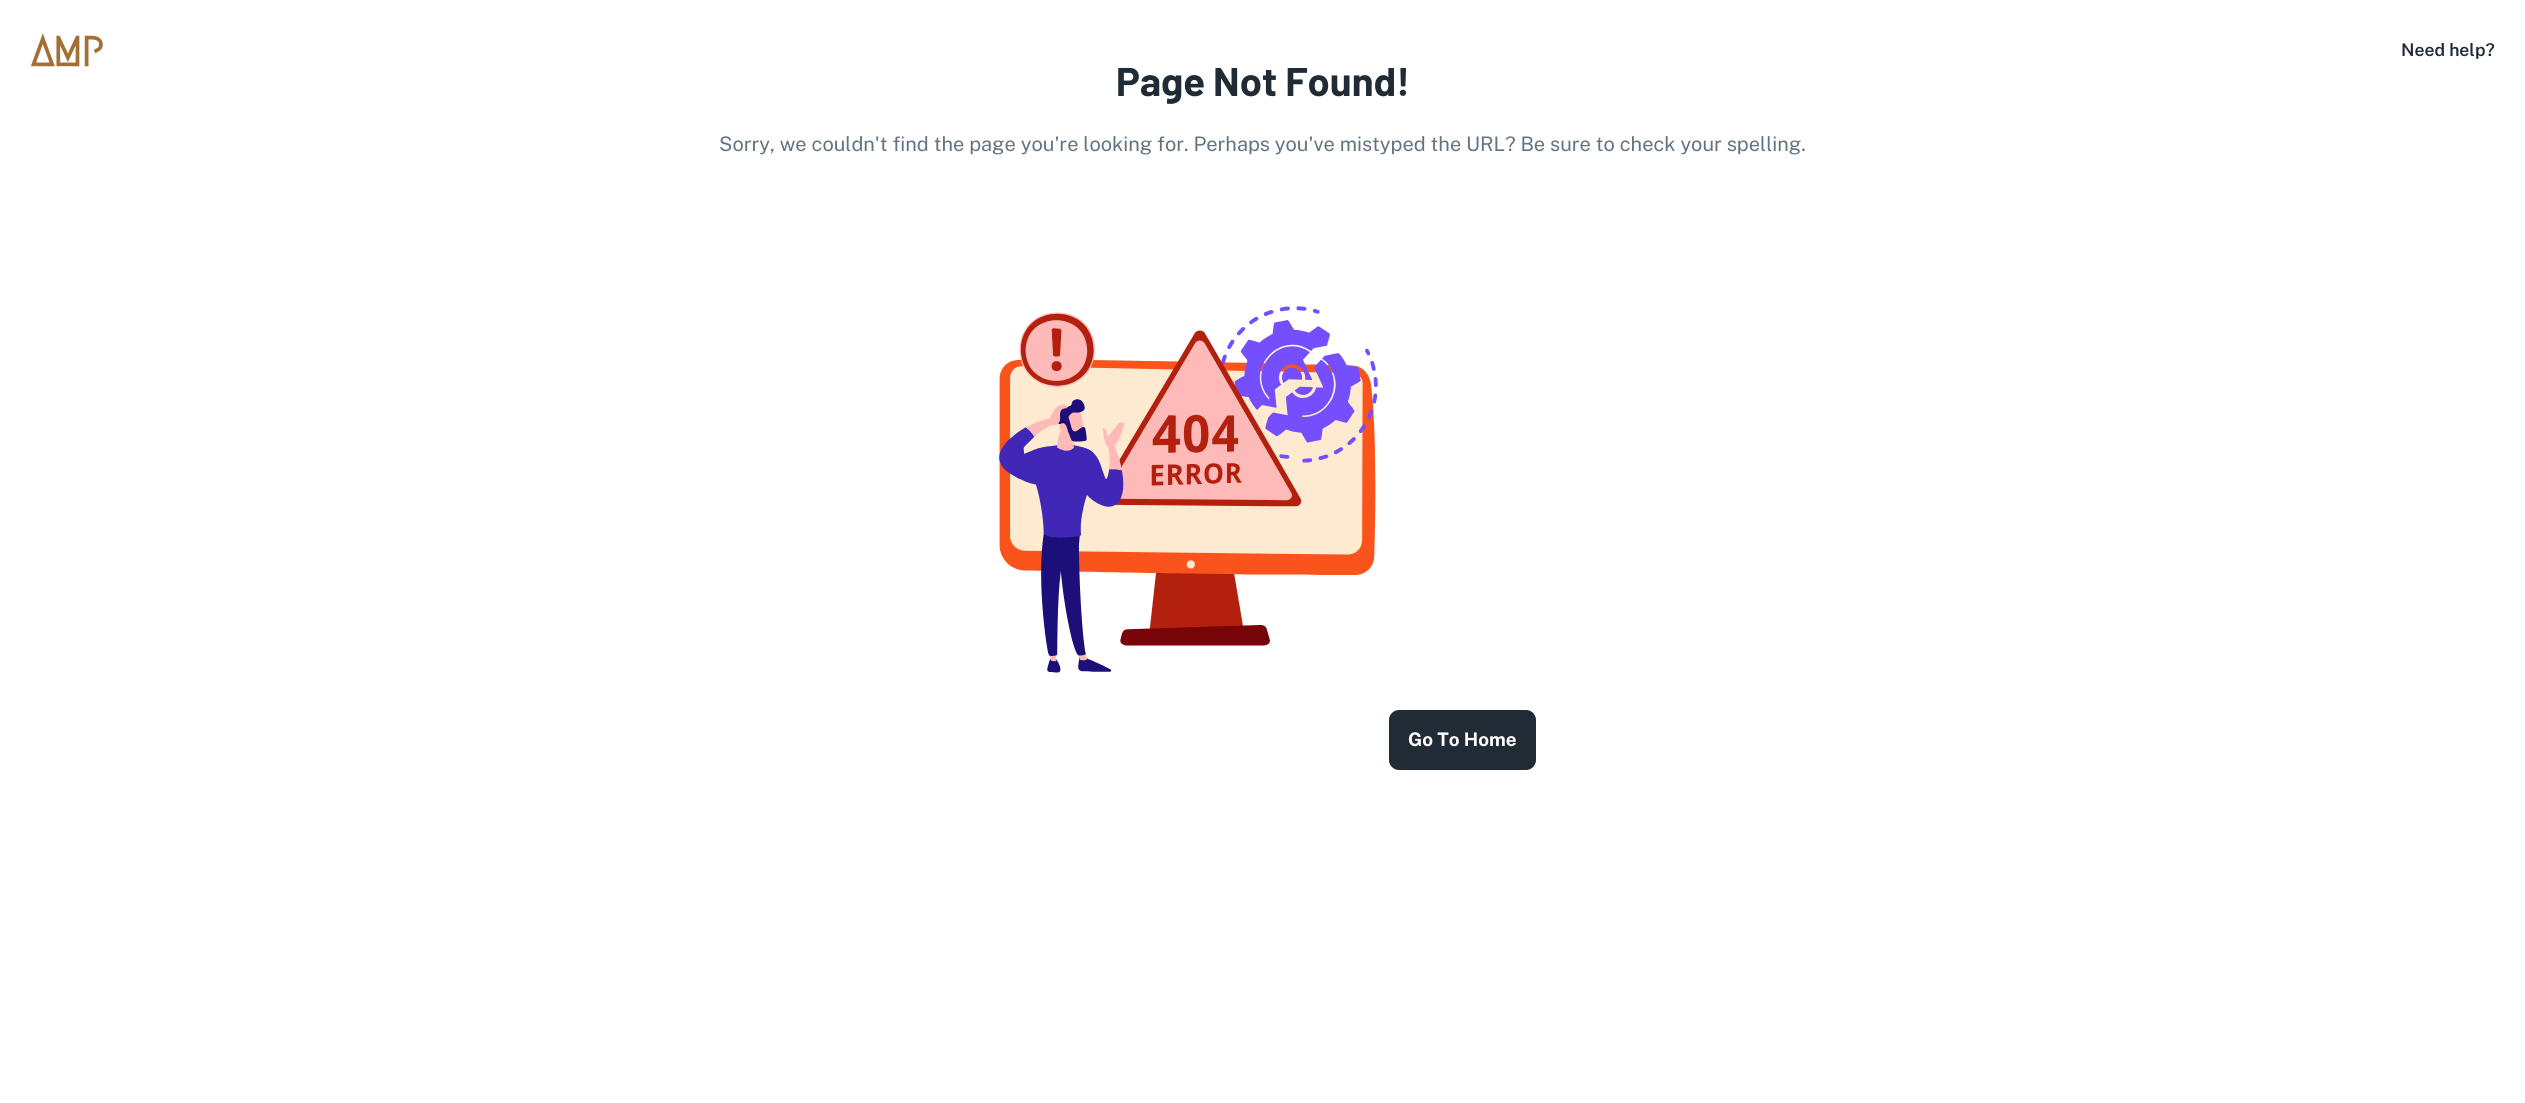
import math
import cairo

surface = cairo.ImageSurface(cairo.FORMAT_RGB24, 2525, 1103)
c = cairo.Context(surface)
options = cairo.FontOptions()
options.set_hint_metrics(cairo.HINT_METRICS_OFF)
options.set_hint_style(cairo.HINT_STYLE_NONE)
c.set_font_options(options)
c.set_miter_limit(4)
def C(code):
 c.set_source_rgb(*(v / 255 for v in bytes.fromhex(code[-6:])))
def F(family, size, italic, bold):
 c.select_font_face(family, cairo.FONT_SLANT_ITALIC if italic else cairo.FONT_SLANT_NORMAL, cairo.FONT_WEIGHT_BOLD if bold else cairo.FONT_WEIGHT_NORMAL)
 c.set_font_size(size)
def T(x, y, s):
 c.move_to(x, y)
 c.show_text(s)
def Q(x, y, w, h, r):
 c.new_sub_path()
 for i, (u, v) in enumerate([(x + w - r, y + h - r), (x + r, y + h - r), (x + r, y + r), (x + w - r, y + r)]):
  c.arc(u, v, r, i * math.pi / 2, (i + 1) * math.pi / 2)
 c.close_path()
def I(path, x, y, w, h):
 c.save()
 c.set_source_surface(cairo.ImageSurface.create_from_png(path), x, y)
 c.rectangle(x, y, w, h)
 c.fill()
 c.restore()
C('ffffff')
c.paint()
I('1.png',30,33,73,34)
F('Public Sans SemiBold',17.5,0,0)
C('212b36')
T(2401,56,'Need help?')
F('Barlow',40,0,1)
T(1116,96,'Page Not Found!')
F('Public Sans',20,0,0)
C('637381')
T(719,151,'Sorry, we couldn\'t find the page you\'re looking for. Perhaps you\'ve mistyped the URL? Be sure to check your spelling.')
I('2.png',999,306,379,367)
C('212b36')
Q(1389,710,147,60,10)
c.fill()
F('Public Sans',18.75,0,1)
C('ffffff')
T(1408,746,'Go To Home')
surface.write_to_png('o.png')
